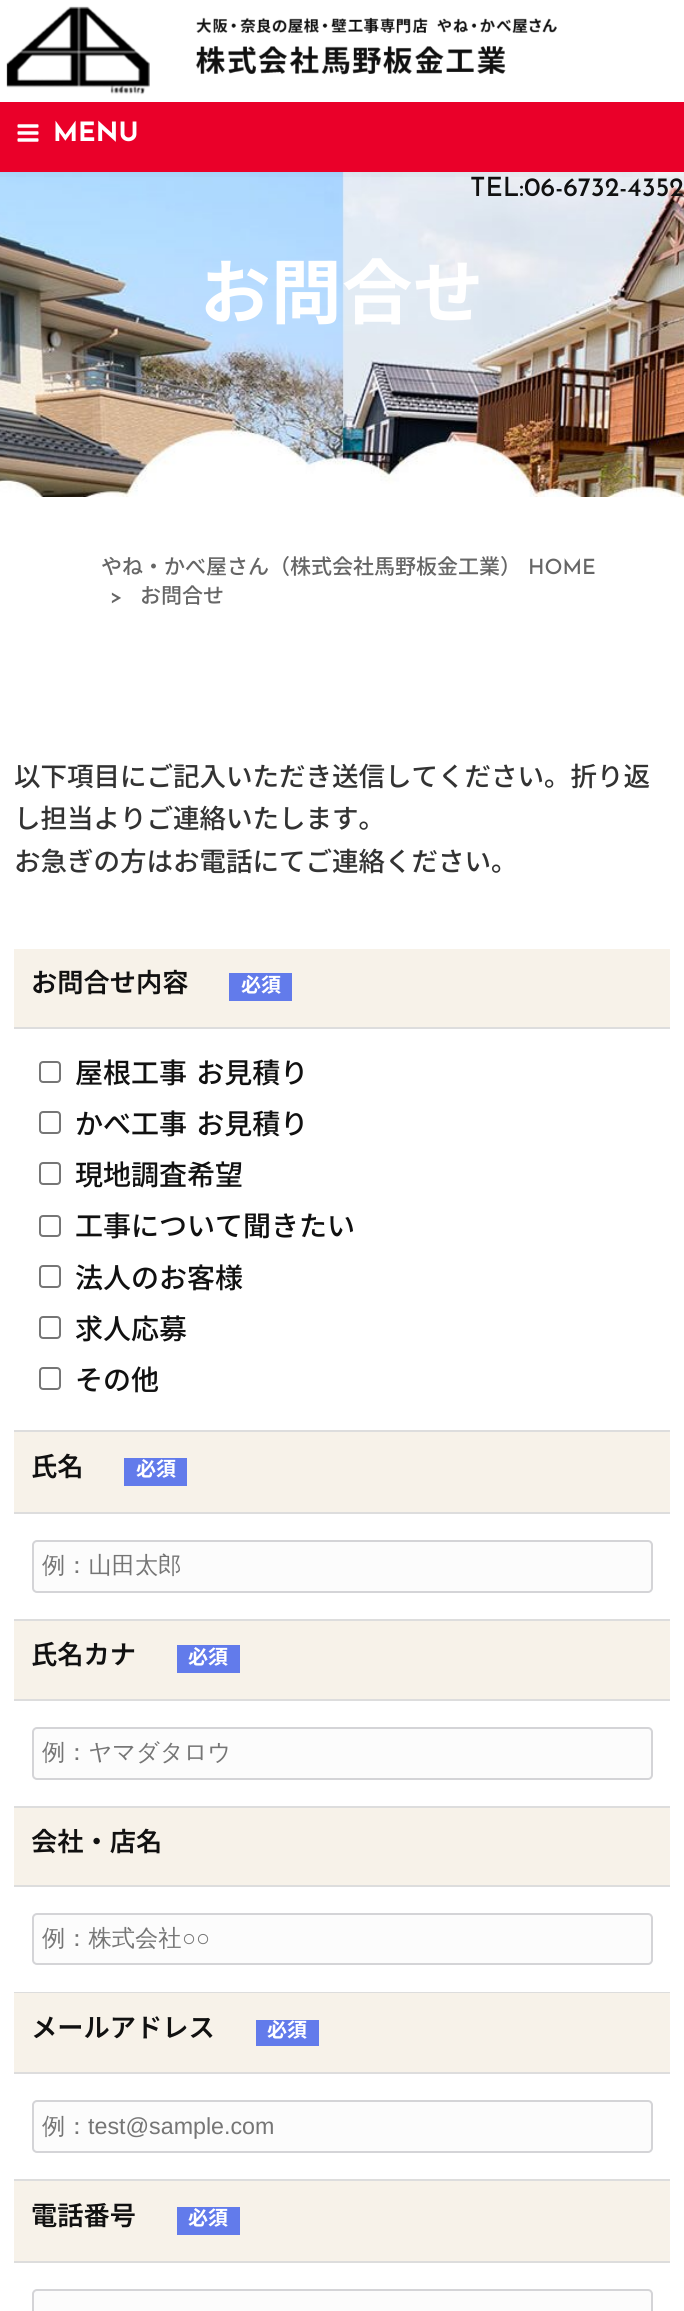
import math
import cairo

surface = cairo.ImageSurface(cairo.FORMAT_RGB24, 684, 2311)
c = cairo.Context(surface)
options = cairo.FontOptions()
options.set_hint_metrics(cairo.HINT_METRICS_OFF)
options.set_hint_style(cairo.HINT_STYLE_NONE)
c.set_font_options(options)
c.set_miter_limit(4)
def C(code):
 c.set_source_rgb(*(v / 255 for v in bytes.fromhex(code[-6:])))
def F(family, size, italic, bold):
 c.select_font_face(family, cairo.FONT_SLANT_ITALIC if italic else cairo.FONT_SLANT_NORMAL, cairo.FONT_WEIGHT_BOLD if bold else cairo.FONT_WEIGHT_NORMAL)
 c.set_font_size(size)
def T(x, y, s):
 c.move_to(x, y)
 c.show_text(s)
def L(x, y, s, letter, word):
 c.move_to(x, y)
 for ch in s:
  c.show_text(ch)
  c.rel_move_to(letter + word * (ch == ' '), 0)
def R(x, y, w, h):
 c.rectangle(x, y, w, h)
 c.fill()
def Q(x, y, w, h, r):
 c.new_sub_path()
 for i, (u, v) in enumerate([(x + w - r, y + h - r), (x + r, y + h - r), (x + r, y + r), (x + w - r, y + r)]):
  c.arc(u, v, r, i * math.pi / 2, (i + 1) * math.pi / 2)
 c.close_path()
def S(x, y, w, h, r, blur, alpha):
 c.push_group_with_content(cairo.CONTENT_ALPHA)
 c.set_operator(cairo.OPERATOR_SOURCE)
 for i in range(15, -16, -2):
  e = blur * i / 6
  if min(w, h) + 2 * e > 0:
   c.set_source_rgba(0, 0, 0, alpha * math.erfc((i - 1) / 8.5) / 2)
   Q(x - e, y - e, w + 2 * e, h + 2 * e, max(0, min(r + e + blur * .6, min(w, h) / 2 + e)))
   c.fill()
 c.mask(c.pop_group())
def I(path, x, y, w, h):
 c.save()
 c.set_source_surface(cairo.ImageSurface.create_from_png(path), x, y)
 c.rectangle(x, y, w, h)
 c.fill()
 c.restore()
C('ffffff')
c.paint()
I('3.png',0,172,684,325)
c.save()
c.rectangle(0,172,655,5)
c.clip()
C('000000')
S(-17,25,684,140,0,17.5,.08)
c.restore()
I('1.png',6,6,551,89)
C('ea0029')
R(0,102,684,70)
I('2.png',17,124,22,18)
F('Josefin Sans',26.5,0,1)
C('ffffff')
T(53,141,'MENU')
F('Josefin Sans Medium',26.5,0,0)
C('111111')
T(470,196,'TEL:06-6732-4352')
F('Noto Sans JP',70.5,0,1)
C('ffffff')
L(200,318,'お問合せ',.5,0)
F('Noto Sans JP Medium',21,0,0)
C('666666')
T(101,574,'やね・かべ屋さん（株式会社馬野板金工業）')
F('Josefin Sans Medium',21,0,0)
T(528,574,'HOME')
T(110,603,'>')
F('Noto Sans JP Medium',21,0,0)
T(140,603,'お問合せ')
F('Noto Sans JP Medium',26.5,0,0)
C('333333')
T(14,786,'以下項目にご記入いただき送信してください。折り返')
T(14,828,'し担当よりご連絡いたします。')
T(14,871,'お急ぎの方はお電話にてご連絡ください。')
C('f7f2e9')
R(14,949,656,78)
C('dddddd')
R(14,1027,656,2)
F('Noto Sans JP SemiBold',26.25,0,0)
C('111111')
T(31,992,'お問合せ内容')
C('627beb')
R(229,973,63,28)
F('Noto Sans JP',20,0,1)
C('ffffff')
T(241,992,'必須')
C('dddddd')
R(14,1430,656,2)
Q(40,1062,20,20,3)
C('767676')
c.stroke()
F('Noto Sans JP Medium',28,0,0)
C('111111')
L(75,1083,'屋根工事 お見積り',0,3)
Q(40,1112,20,21,3)
C('767676')
c.stroke()
C('111111')
L(75,1134,'かべ工事 お見積り',0,3)
Q(40,1163,20,21,3)
C('767676')
c.stroke()
C('111111')
T(75,1185,'現地調査希望')
Q(40,1216,20,20,3)
C('767676')
c.stroke()
C('111111')
T(75,1236,'工事について聞きたい')
Q(40,1266,20,21,3)
C('767676')
c.stroke()
C('111111')
T(75,1288,'法人のお客様')
Q(40,1317,20,21,3)
C('767676')
c.stroke()
C('111111')
T(75,1339,'求人応募')
Q(40,1368,20,21,3)
C('767676')
c.stroke()
C('111111')
T(75,1390,'その他')
C('f7f2e9')
R(14,1432,656,80)
C('dddddd')
R(14,1512,656,2)
F('Noto Sans JP SemiBold',26.25,0,0)
C('111111')
T(31,1476,'氏名')
C('627beb')
R(124,1458,63,28)
F('Noto Sans JP',20,0,1)
C('ffffff')
T(136,1476,'必須')
C('dddddd')
R(14,1619,656,2)
C('fcfcfc')
Q(33,1541,619,51,4)
c.fill_preserve()
C('d4d4d7')
c.stroke()
F('WenQuanYi Zen Hei Medium',23.25,0,0)
C('757575')
T(42,1573,'例：山田太郎')
C('f7f2e9')
R(14,1621,656,78)
C('dddddd')
R(14,1699,656,2)
F('Noto Sans JP SemiBold',26.25,0,0)
C('111111')
T(31,1664,'氏名カナ')
C('627beb')
R(177,1645,63,28)
F('Noto Sans JP',20,0,1)
C('ffffff')
T(188,1664,'必須')
C('dddddd')
R(14,1806,656,2)
C('fcfcfc')
Q(33,1728,619,51,4)
c.fill_preserve()
C('d4d4d7')
c.stroke()
F('WenQuanYi Zen Hei Medium',23.25,0,0)
C('757575')
T(42,1760,'例：ヤマダタロウ')
C('f7f2e9')
R(14,1808,656,77)
C('dddddd')
R(14,1885,656,2)
F('Noto Sans JP SemiBold',26.25,0,0)
C('111111')
T(31,1851,'会社・店名')
C('dddddd')
R(14,1992,656,1)
C('fcfcfc')
Q(33,1914,619,50,4)
c.fill_preserve()
C('d4d4d7')
c.stroke()
F('WenQuanYi Zen Hei Medium',23.25,0,0)
C('757575')
T(42,1946,'例：株式会社')
F('Liberation Sans',23.25,0,0)
T(182,1946,'○○')
C('f7f2e9')
R(14,1993,656,79)
C('dddddd')
R(14,2072,656,2)
F('Noto Sans JP SemiBold',26.25,0,0)
C('111111')
T(31,2037,'メールアドレス')
C('627beb')
R(256,2020,63,26)
F('Noto Sans JP',20,0,1)
C('ffffff')
T(267,2037,'必須')
C('dddddd')
R(14,2179,656,2)
C('fcfcfc')
Q(33,2101,619,51,4)
c.fill_preserve()
C('d4d4d7')
c.stroke()
F('WenQuanYi Zen Hei Medium',23.25,0,0)
C('757575')
T(42,2134,'例：')
F('Liberation Sans',23.25,0,0)
T(88,2134,'test@sample.com')
C('f7f2e9')
R(14,2181,656,80)
C('dddddd')
R(14,2261,656,2)
F('Noto Sans JP SemiBold',26.25,0,0)
C('111111')
T(31,2225,'電話番号')
C('627beb')
R(177,2207,63,28)
F('Noto Sans JP',20,0,1)
C('ffffff')
T(188,2225,'必須')
C('fcfcfc')
Q(33,2290,619,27,4)
c.fill_preserve()
C('d4d4d7')
c.stroke()
surface.write_to_png('o.png')
